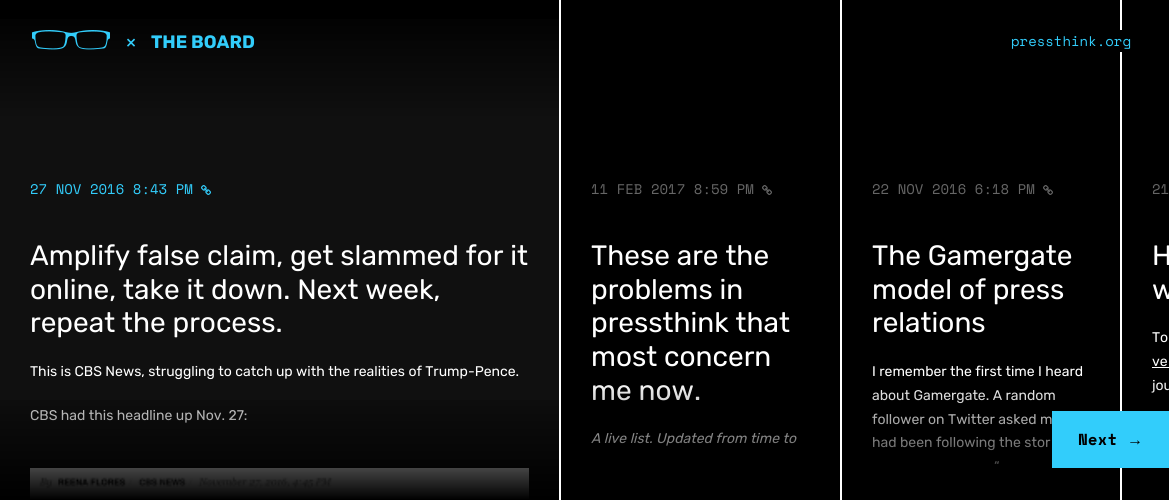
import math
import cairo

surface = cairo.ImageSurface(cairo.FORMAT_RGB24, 1169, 500)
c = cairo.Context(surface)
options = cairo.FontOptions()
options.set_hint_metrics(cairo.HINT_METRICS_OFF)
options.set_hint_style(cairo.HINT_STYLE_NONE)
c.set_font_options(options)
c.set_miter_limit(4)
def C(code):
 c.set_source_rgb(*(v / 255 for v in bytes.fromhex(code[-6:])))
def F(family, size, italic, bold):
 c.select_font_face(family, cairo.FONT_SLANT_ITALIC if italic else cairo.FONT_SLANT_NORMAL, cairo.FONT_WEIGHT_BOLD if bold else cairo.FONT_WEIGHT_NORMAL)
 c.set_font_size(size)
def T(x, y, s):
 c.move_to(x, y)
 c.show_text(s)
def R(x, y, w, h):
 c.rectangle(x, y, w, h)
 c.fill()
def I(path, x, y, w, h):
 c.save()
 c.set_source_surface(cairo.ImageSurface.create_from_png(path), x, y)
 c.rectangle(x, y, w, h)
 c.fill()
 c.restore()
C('000000')
c.paint()
gradient = cairo.LinearGradient(280,0,280,120)
gradient.add_color_stop_rgba(0,0,0,0,1)
gradient.add_color_stop_rgba(1,0.063,0.063,0.063,1)
c.set_source(gradient)
R(0,19,559,101)
I('1.png',32,30,78,20)
F('Rubik',18,0,0)
C('32cdfb')
T(126,48,'×')
F('Rubik',18,0,1)
T(151,48,'THE BOARD')
C('ffffff')
R(1120,0,2,500)
C('000000')
R(1120,30,2,22)
F('Space Mono',14,0,0)
C('32cdfb')
T(1011,46,'pressthink.org')
C('101010')
R(0,120,559,379)
C('ffffff')
R(559,0,2,500)
C('32cdfb')
T(30,194,'27 NOV 2016 8:43 PM')
I('2.png',201,185,10,10)
F('Rubik',28,0,0)
C('ffffff')
T(30,265,'Amplify false claim, get slammed for it')
T(30,299,'online, take it down. Next week,')
T(30,332,'repeat the process.')
F('Rubik',14,0,0)
T(30,376,'This is CBS News, struggling to catch up with the realities of Trump-Pence.')
T(30,420,'CBS had this headline up Nov. 27:')
I('3.png',30,468,499,31)
gradient = cairo.LinearGradient(280,500,280,380)
gradient.add_color_stop_rgba(0,0,0,0,1)
gradient.add_color_stop_rgba(1,0,0,0,0)
c.set_source(gradient)
R(0,400,559,99)
C('ffffff')
R(840,0,2,500)
F('Space Mono',14,0,0)
C('666666')
T(591,194,'11 FEB 2017 8:59 PM')
I('4.png',762,185,10,10)
F('Rubik',28,0,0)
C('ffffff')
T(591,265,'These are the')
T(591,299,'problems in')
T(591,332,'pressthink that')
T(591,366,'most concern')
T(591,400,'me now.')
F('Rubik',14,1,0)
T(591,443,'A live list. Updated from time to')
gradient = cairo.LinearGradient(701,500,701,380)
gradient.add_color_stop_rgba(0,0,0,0,1)
gradient.add_color_stop_rgba(1,0,0,0,0)
c.set_source(gradient)
R(591,385,206,61)
F('Space Mono',14,0,0)
C('666666')
T(872,194,'22 NOV 2016 6:18 PM')
I('4.png',1043,185,10,10)
F('Rubik',28,0,0)
C('ffffff')
T(872,265,'The Gamergate')
T(872,299,'model of press')
T(872,332,'relations')
F('Rubik',14,0,0)
T(872,376,'I remember the first time I heard')
T(872,400,'about Gamergate. A random')
T(872,424,'follower on Twitter asked m')
T(872,447,'had been following the stor')
T(994,471,'“')
gradient = cairo.LinearGradient(981,500,981,380)
gradient.add_color_stop_rgba(0,0,0,0,1)
gradient.add_color_stop_rgba(1,0,0,0,0)
c.set_source(gradient)
R(871,390,184,74)
F('Space Mono',14,0,0)
C('666666')
T(1152,194,'21')
F('Rubik',28,0,0)
C('ffffff')
T(1152,265,'H')
T(1152,299,'w')
F('Rubik',14,0,0)
T(1152,342,'To')
T(1152,366,'ve')
R(1152,367,17,1)
T(1152,390,'jou')
gradient = cairo.LinearGradient(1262,500,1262,380)
gradient.add_color_stop_rgba(0,0,0,0,1)
gradient.add_color_stop_rgba(1,0,0,0,0)
c.set_source(gradient)
R(1151,383,18,10)
C('32cdfb')
R(1052,411,117,57)
F('Space Mono',16,0,1)
C('000000')
T(1078,445,'Next')
F('Liberation Serif',16,0,1)
T(1127,445,'→')
surface.write_to_png('o.png')
